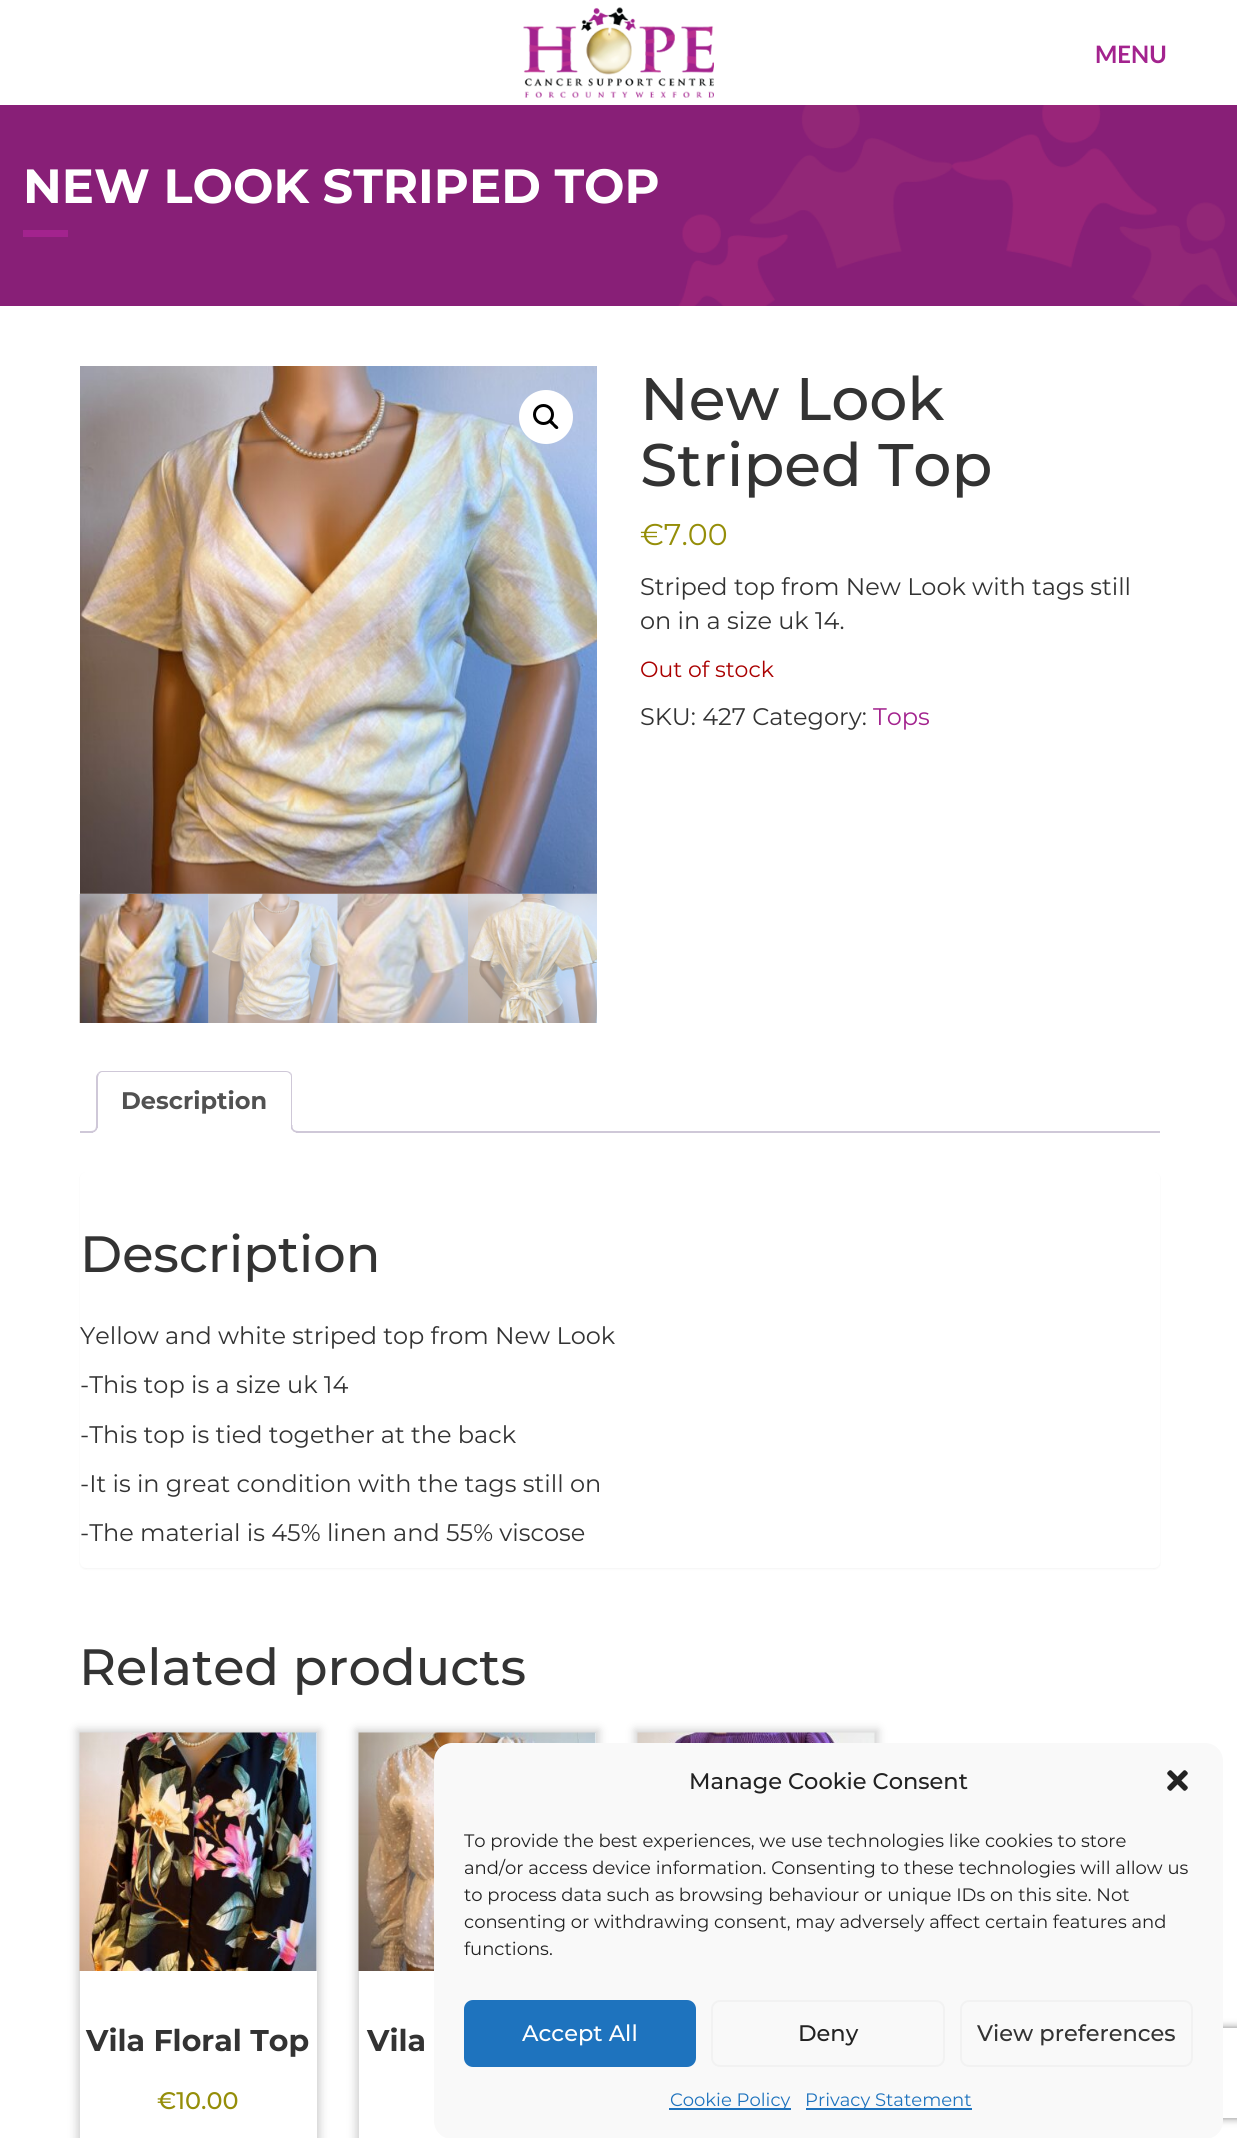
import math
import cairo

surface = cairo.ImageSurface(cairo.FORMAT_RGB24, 1237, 2138)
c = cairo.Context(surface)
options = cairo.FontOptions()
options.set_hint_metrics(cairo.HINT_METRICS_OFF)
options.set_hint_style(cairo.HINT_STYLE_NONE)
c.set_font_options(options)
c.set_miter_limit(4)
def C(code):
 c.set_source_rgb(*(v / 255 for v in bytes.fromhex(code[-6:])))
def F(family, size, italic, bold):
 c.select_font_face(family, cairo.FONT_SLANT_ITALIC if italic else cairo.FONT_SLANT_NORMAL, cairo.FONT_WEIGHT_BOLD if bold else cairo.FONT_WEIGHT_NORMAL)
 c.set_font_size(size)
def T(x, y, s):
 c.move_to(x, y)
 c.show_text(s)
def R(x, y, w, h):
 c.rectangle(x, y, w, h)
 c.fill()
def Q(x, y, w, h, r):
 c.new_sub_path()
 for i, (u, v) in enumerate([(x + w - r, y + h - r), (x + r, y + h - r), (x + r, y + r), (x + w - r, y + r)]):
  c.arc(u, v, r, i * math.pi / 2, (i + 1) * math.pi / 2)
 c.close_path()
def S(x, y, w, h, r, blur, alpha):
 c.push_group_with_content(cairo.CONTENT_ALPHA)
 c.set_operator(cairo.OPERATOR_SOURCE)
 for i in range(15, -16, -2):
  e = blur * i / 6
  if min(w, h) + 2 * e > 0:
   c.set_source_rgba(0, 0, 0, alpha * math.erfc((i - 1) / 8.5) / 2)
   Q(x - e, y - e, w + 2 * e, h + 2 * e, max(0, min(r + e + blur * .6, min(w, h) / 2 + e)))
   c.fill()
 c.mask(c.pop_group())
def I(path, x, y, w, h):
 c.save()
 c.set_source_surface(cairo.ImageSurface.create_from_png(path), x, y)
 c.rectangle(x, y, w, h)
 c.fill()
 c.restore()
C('ffffff')
c.paint()
I('1.png',523,7,191,91)
F('Lato',24,0,1)
C('a3238e')
T(1095,63,'MENU')
C('881f77')
R(0,105,1237,201)
I('2.png',678,105,559,201)
F('Montserrat',48,0,1)
C('ffffff')
T(23,203,'NEW LOOK STRIPED TOP')
C('a3238e')
R(23,230,45,7)
I('3.png',80,366,517,528)
C('ffffff')
c.arc(546,417,27,0,2 * math.pi)
c.fill()
c.arc(543.5,414.5,9,0,2 * math.pi)
C('000000')
c.set_line_width(3)
c.stroke()
c.new_path()
c.move_to(549.5,420.5)
c.curve_to(551,418.5,554,422.5,554.5,423.5)
c.curve_to(555.5,424.5,559.5,427,558,428.5)
c.curve_to(556,430.5,553.5,426.5,552.5,425.5)
c.curve_to(551.5,424.5,547.5,422,549.5,420.5)
c.close_path()
c.fill()
I('4.png',79,894,130,129)
I('5.png',208,894,130,129)
I('6.png',337,894,131,129)
I('7.png',468,894,129,129)
F('Montserrat Medium',60,0,0)
C('333333')
T(640,420,'New Look')
T(640,486,'Striped Top')
F('Montserrat',30,0,0)
C('958e09')
T(640,545,'€7.00')
F('Montserrat',24,0,0)
C('333333')
T(640,595,'Striped top from New Look with tags still')
T(640,629,'on in a size uk 14.')
F('Montserrat',22,0,0)
C('aa0000')
T(640,677,'Out of stock')
F('Montserrat',24,0,0)
C('333333')
T(640,725,'SKU: 427 Category:')
C('a3238e')
T(873,725,'Tops')
C('cfc8d8')
R(80,1131,1080,2)
C('ffffff')
c.new_path()
c.move_to(102,1071)
c.line_to(287,1071)
c.curve_to(290.5,1071,293,1073.5,293,1077)
c.line_to(293,1133)
c.line_to(96,1133)
c.line_to(96,1077)
c.curve_to(96,1073.5,98.5,1071,102,1071)
c.close_path()
c.fill()
C('cfc8d8')
c.new_path()
c.move_to(102,1071)
c.curve_to(100,1071,99,1072,98,1073)
c.line_to(99,1074)
c.curve_to(100,1073,101,1072,102,1072)
c.line_to(286,1072)
c.curve_to(288,1072,289,1073,290,1074)
c.line_to(291,1073)
c.curve_to(290,1072,288,1071,286,1071)
c.close_path()
c.fill()
c.new_path()
c.move_to(291,1073)
c.curve_to(292,1074,292,1076,292,1077)
c.line_to(292,1132)
c.line_to(291,1131)
c.line_to(291,1077)
c.curve_to(291,1076,291,1075,290,1074)
c.close_path()
c.fill()
C('ffffff')
c.new_path()
c.move_to(292,1132)
c.line_to(291,1131)
c.line_to(98,1131)
c.line_to(98,1130)
c.line_to(96,1132)
c.close_path()
c.fill()
C('cfc8d8')
c.new_path()
c.move_to(96,1077)
c.line_to(96,1132)
c.line_to(98,1130)
c.line_to(98,1077)
c.line_to(99,1074)
c.line_to(98,1073)
c.curve_to(97,1074,96,1076,96,1077)
c.close_path()
c.fill()
F('Montserrat',24,0,1)
C('515151')
T(121,1109,'Description')
c.save()
c.rectangle(80,1071,1080,62)
c.clip()
C('ffffff')
c.new_path()
c.move_to(93,1132.5)
c.line_to(93,1136)
c.curve_to(99,1136,101,1134,101,1128)
c.line_to(97.5,1128)
c.curve_to(97,1130,95,1132,93,1132.5)
c.close_path()
c.fill()
c.restore()
C('cfc8d8')
c.set_fill_rule(cairo.FILL_RULE_EVEN_ODD)
c.new_path()
c.move_to(90,1125)
c.line_to(97.5,1125)
c.curve_to(97.5,1130.5,95.5,1132.5,90,1132.5)
c.close_path()
c.move_to(90,1125)
c.line_to(96,1125)
c.curve_to(96,1129.5,94.5,1131,90,1131)
c.close_path()
c.fill()
c.save()
c.set_fill_rule(cairo.FILL_RULE_WINDING)
c.rectangle(80,1071,1080,62)
c.clip()
C('ffffff')
c.new_path()
c.move_to(288,1128)
c.curve_to(288,1134,290,1136,296,1136)
c.line_to(296,1132.5)
c.curve_to(293.5,1132,292,1130.5,291,1128)
c.close_path()
c.fill()
c.restore()
c.new_path()
c.move_to(291,1125)
c.line_to(298.5,1125)
c.line_to(298.5,1132.5)
c.curve_to(294.5,1132.5,291,1131,291,1126.5)
c.close_path()
c.move_to(292.5,1125)
c.line_to(298.5,1125)
c.line_to(298.5,1131)
c.curve_to(295.5,1131,292.5,1130,292.5,1126.5)
c.close_path()
c.fill()
C('000000')
S(80,1173,1080,396,6,1,.05)
C('ffffff')
Q(80,1172,1080,396,6)
c.fill()
F('Montserrat Medium',51,0,0)
C('333333')
T(80,1272,'Description')
F('Montserrat',24,0,0)
T(80,1344,'Yellow and white striped top from New Look')
T(80,1393,'-This top is a size uk 14')
T(80,1443,'-This top is tied together at the back')
T(80,1492,'-It is in great condition with the tags still on')
T(80,1541,'-The material is 45% linen and 55% viscose')
F('Montserrat Medium',51,0,0)
T(79,1685,'Related products')
c.save()
c.new_path()
c.move_to(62,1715)
c.line_to(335,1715)
c.line_to(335,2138)
c.line_to(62,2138)
c.close_path()
c.move_to(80,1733)
c.line_to(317,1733)
c.line_to(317,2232)
c.line_to(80,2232)
c.close_path()
c.clip()
C('d0d0d0')
S(77,1730,243,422,0,4.5,1)
c.restore()
I('8.png',79,1732,238,239)
F('Montserrat',30,0,1)
T(86,2051,'Vila Floral Top')
F('Montserrat Medium',24,0,0)
C('958e09')
T(157,2109,'€10.00')
c.save()
c.new_path()
c.move_to(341,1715)
c.line_to(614,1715)
c.line_to(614,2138)
c.line_to(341,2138)
c.close_path()
c.move_to(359,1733)
c.line_to(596,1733)
c.line_to(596,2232)
c.line_to(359,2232)
c.close_path()
c.clip()
C('d0d0d0')
S(356,1730,243,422,0,4.5,1)
c.restore()
I('9.png',358,1732,238,239)
F('Montserrat',30,0,1)
C('333333')
T(367,2051,'Vila')
C('d0d0d0')
S(635,1730,243,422,0,4.5,1)
I('10.png',637,1732,238,11)
c.save()
c.new_path()
c.move_to(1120,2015)
c.line_to(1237,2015)
c.line_to(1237,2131)
c.line_to(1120,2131)
c.close_path()
c.move_to(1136,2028)
c.line_to(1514,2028)
c.curve_to(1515.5,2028,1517,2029.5,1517,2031)
c.line_to(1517,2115)
c.curve_to(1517,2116.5,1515.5,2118,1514,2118)
c.line_to(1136,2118)
c.curve_to(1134.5,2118,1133,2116.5,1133,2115)
c.line_to(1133,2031)
c.curve_to(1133,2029.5,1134.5,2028,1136,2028)
c.close_path()
c.clip()
C('808080')
S(1133,2028,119,90,3,4,1)
c.restore()
C('f9f9f9')
Q(434,1743,789,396,18)
c.fill()
F('Montserrat Medium',22.5,0,0)
C('222222')
T(689,1789,'Manage Cookie Consent')
I('11.png',1167,1770,21,21)
F('Montserrat',18,0,0)
T(464,1847,'To provide the best experiences, we use technologies like cookies to store')
T(464,1874,'and/or access device information. Consenting to these technologies will allow us')
T(464,1901,'to process data such as browsing behaviour or unique IDs on this site. Not')
T(464,1928,'consenting or withdrawing consent, may adversely affect certain features and')
T(464,1955,'functions.')
C('1e73be')
Q(465,2001,230,65,8)
c.fill_preserve()
c.set_line_width(2)
c.stroke()
F('Montserrat Medium',22.5,0,0)
C('ffffff')
T(522,2041,'Accept All')
Q(712,2001,232,65,8)
C('f2f2f2')
c.stroke()
C('222222')
T(798,2041,'Deny')
Q(961,2001,231,65,8)
C('f2f2f2')
c.stroke()
C('333333')
T(977,2041,'View preferences')
C('1e73be')
R(669,2108,122,2)
F('Montserrat',18,0,0)
T(670,2106,'Cookie Policy')
R(806,2108,166,2)
T(805,2106,'Privacy Statement')
surface.write_to_png('o.png')
